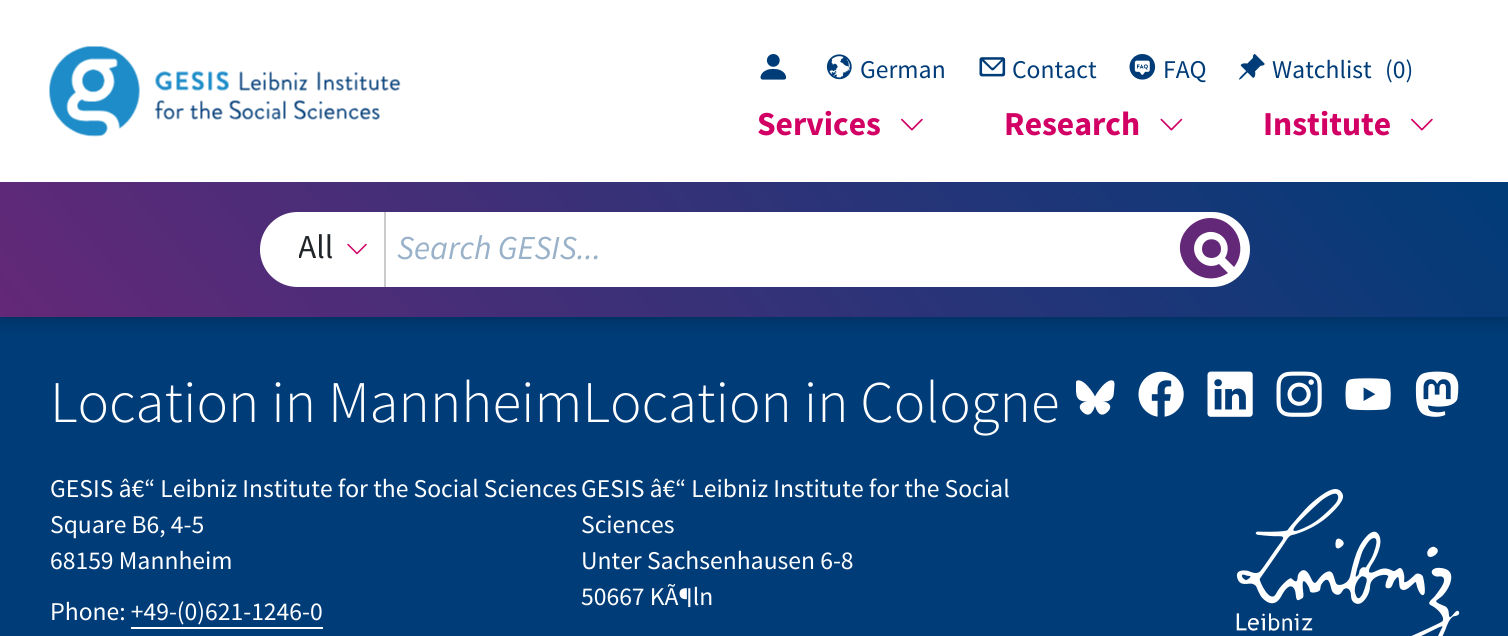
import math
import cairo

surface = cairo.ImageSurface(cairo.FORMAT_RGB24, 1508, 636)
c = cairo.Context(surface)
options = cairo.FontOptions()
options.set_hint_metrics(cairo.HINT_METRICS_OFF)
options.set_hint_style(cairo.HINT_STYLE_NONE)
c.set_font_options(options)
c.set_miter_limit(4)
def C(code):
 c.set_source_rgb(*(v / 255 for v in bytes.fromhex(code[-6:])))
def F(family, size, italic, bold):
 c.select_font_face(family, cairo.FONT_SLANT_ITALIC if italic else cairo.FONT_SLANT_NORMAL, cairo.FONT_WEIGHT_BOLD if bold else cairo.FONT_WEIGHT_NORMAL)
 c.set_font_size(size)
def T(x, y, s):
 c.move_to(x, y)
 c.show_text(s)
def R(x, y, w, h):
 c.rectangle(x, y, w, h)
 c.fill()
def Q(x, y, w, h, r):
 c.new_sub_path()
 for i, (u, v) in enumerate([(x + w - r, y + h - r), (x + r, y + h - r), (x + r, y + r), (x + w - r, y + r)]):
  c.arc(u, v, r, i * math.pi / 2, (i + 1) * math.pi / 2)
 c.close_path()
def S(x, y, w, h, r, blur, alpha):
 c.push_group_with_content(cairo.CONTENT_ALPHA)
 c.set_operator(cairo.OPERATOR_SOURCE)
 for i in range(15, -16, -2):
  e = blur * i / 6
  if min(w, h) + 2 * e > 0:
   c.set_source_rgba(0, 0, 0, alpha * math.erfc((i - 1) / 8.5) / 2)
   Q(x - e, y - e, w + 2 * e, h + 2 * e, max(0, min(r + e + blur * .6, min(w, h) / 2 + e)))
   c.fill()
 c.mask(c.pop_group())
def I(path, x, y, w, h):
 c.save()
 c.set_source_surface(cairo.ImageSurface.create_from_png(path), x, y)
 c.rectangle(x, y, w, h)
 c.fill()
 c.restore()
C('003c78')
c.paint()
C('000000')
S(0,6,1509,317,0,7.5,.18)
C('ffffff')
R(0,0,1508,182)
I('1.png',49,46,352,91)
I('2.png',760,54,27,26)
I('3.png',826,54,26,26)
F('Source Sans Pro',25.6,0,0)
C('003c78')
T(860,78,'German')
I('4.png',979,57,27,20)
T(1012,78,'Contact')
I('5.png',1129,54,27,26)
T(1163,78,'FAQ')
I('6.png',1239,54,26,26)
T(1272,78,'Watchlist')
T(1385,78,'(0)')
F('Source Sans Pro',33.5,0,1)
C('d20064')
T(757,135,'Services')
I('7.png',901,118,22,13)
T(1004,135,'Research')
I('8.png',1160,118,23,13)
T(1263,135,'Institute')
I('7.png',1411,118,22,13)
gradient = cairo.LinearGradient(279,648,1230,-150)
gradient.add_color_stop_rgba(0,0.392,0.157,0.471,1)
gradient.add_color_stop_rgba(1,0,0.235,0.471,1)
c.set_source(gradient)
R(0,182,1508,135)
C('ffffff')
Q(260,212,990,75,37.5)
c.fill()
I('9.png',347,243,20,12)
C('cccccc')
R(384,212,2,75)
c.save()
c.rectangle(299,219,36,60)
c.clip()
F('Source Sans Pro',33.5,0,0)
C('212529')
T(298,258,'All')
c.restore()
F('Source Sans Pro',33.5,1,0)
C('99b1c9')
T(397,259,'Search GESIS...')
C('642878')
c.new_path()
c.move_to(1221,249)
c.curve_to(1221,261,1202,261,1202,249)
c.curve_to(1202,236,1221,236,1221,249)
c.close_path()
c.move_to(1210,218)
c.curve_to(1203,218,1195,221,1189,227)
c.curve_to(1163,253,1198,293,1228,273)
c.line_to(1219,264)
c.curve_to(1204,272,1187,254,1197,239)
c.curve_to(1199,236,1202,234,1205,233)
c.curve_to(1210,231,1215,232,1219,234)
c.curve_to(1228,239,1230,250,1225,258)
c.line_to(1234,267)
c.curve_to(1249,248,1236,218,1210,218)
c.close_path()
c.move_to(1234,267)
c.line_to(1225,258)
c.close_path()
c.fill()
F('Source Sans Pro Light',59,0,0)
C('ffffff')
T(50,422,'Location in MannheimLocation in Cologne')
F('Source Sans Pro',25.6,0,0)
T(50,497,'GESIS â€“ Leibniz Institute for the Social Sciences')
T(50,533,'Square B6, 4-5')
T(50,569,'68159 Mannheim')
T(50,620,'Phone: +49-(0)621-1246-0')
R(131,627,192,2)
I('10.png',1076,380,39,35)
I('11.png',1138,371,46,46)
I('12.png',1207,371,46,46)
I('13.png',1276,371,46,46)
I('14.png',1345,378,46,33)
I('15.png',1415,371,44,46)
T(581,497,'GESIS â€“ Leibniz Institute for the Social')
T(581,533,'Sciences')
T(581,569,'Unter Sachsenhausen 6-8')
T(581,605,'50667 KÃ¶ln')
I('16.png',1236,489,224,147)
surface.write_to_png('o.png')
